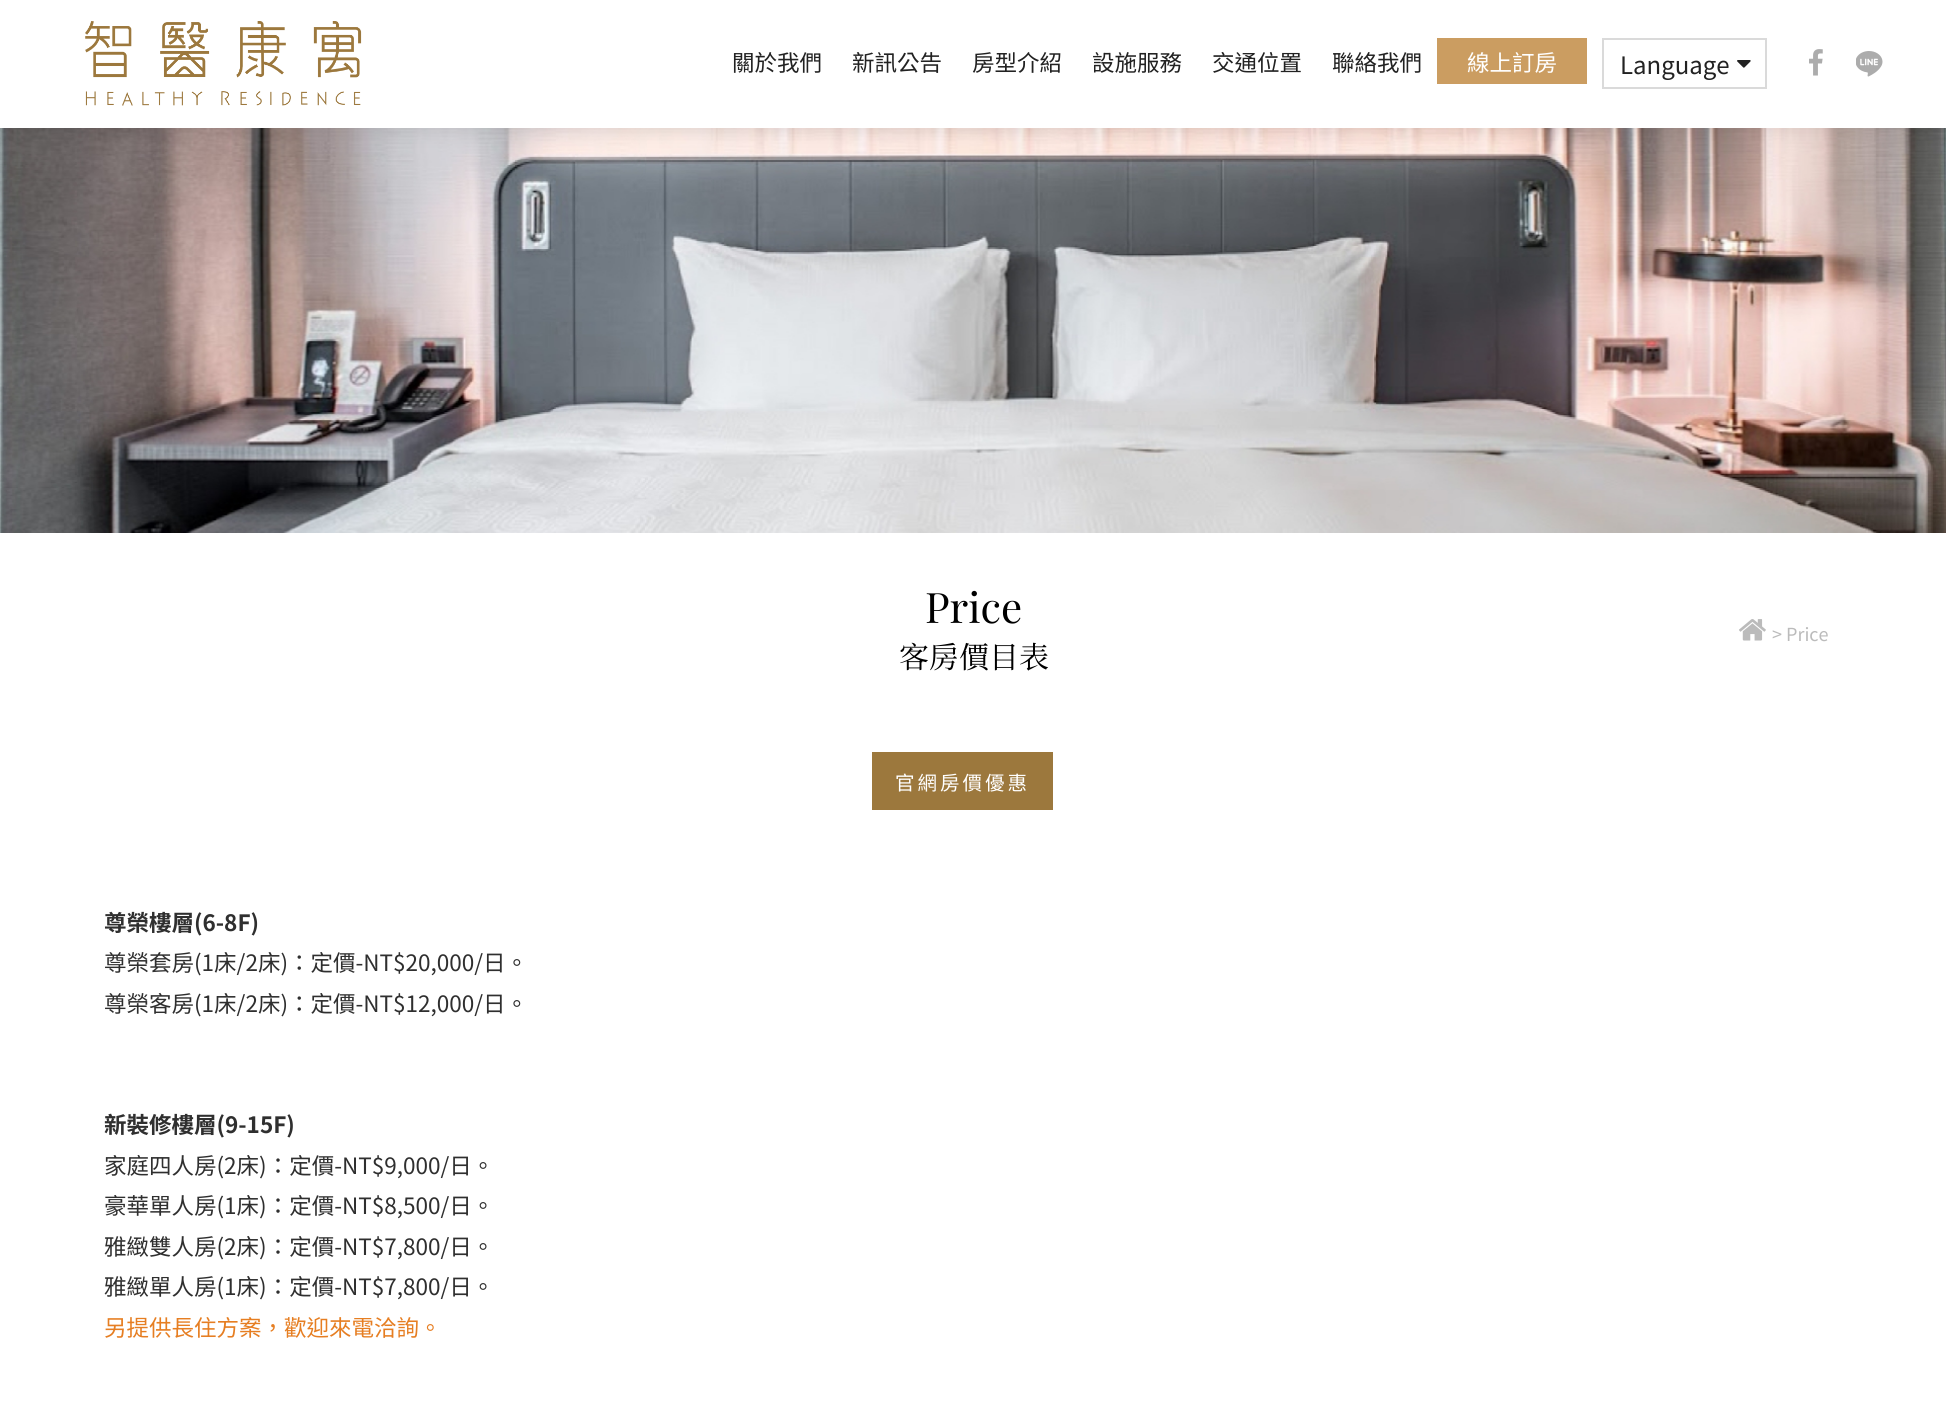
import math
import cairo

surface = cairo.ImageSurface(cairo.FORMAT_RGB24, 1946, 1405)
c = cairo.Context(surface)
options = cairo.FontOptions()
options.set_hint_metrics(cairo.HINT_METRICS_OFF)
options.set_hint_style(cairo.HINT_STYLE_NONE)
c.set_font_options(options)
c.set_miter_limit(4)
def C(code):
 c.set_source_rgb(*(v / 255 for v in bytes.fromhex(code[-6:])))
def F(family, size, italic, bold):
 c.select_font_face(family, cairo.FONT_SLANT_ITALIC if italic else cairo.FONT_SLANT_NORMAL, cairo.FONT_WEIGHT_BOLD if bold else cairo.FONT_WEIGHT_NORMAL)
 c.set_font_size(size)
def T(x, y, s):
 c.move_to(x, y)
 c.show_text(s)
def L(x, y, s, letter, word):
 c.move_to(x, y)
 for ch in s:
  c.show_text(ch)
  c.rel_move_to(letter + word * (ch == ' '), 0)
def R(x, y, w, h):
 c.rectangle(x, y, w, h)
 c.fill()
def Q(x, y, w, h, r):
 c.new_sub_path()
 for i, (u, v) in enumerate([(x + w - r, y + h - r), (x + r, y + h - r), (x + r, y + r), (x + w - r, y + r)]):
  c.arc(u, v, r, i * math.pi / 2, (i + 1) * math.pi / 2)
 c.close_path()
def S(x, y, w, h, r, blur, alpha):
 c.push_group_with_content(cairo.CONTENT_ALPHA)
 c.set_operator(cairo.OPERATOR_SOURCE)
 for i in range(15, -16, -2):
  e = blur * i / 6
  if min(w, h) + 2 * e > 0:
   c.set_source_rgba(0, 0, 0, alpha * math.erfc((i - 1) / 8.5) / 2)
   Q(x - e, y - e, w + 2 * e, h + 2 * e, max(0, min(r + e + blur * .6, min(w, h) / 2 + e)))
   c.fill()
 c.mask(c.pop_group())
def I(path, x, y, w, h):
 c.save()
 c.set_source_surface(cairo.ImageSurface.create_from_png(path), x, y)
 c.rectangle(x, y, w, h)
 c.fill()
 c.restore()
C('ffffff')
c.paint()
I('5.png',0,128,1946,405)
C('000000')
S(0,0,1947,128,0,11,.1)
C('ffffff')
R(0,0,1946,128)
I('1.png',85,21,277,85)
F('Noto Sans TC',22.5,0,0)
C('222222')
T(732,71,'關於我們')
T(852,71,'新訊公告')
T(972,71,'房型介紹')
T(1092,71,'設施服務')
T(1212,71,'交通位置')
T(1332,71,'聯絡我們')
C('cb9d61')
R(1437,38,150,46)
C('ffffff')
T(1467,71,'線上訂房')
c.rectangle(1603,39,163,49)
C('dadada')
c.stroke()
F('Noto Sans TC',24,0,0)
C('222222')
T(1620,74,'Language')
I('2.png',1737,60,14,8)
I('3.png',1809,49,14,27)
I('4.png',1856,51,27,26)
F('Playfair Display',42,0,0)
C('000000')
T(925,623,'Price')
I('6.png',1739,619,27,22)
F('Noto Sans TC',18,0,0)
C('bbbbbb')
T(1772,641,'>')
T(1786,641,'Price')
F('Noto Serif TC',30,0,0)
C('000000')
T(899,668,'客房價目表')
C('9c783d')
R(872,752,181,58)
F('Noto Sans TC',19.5,0,0)
C('ffffff')
L(895,790,'官網房價優惠',3,0)
F('Noto Sans TC',22.5,0,1)
C('2f2f2f')
T(104,931,'尊榮樓層(6-8F)')
F('Noto Sans TC',22.5,0,0)
T(104,971,'尊榮套房(1床/2床)：定價-NT$20,000/日。')
T(104,1012,'尊榮客房(1床/2床)：定價-NT$12,000/日。')
F('Noto Sans TC',22.5,0,1)
T(104,1133,'新裝修樓層(9-15F)')
F('Noto Sans TC',22.5,0,0)
T(104,1174,'家庭四人房(2床)：定價-NT$9,000/日。')
T(104,1214,'豪華單人房(1床)：定價-NT$8,500/日。')
T(104,1255,'雅緻雙人房(2床)：定價-NT$7,800/日。')
T(104,1295,'雅緻單人房(1床)：定價-NT$7,800/日。')
C('e67e22')
T(104,1336,'另提供長住方案，歡迎來電洽詢。')
surface.write_to_png('o.png')
